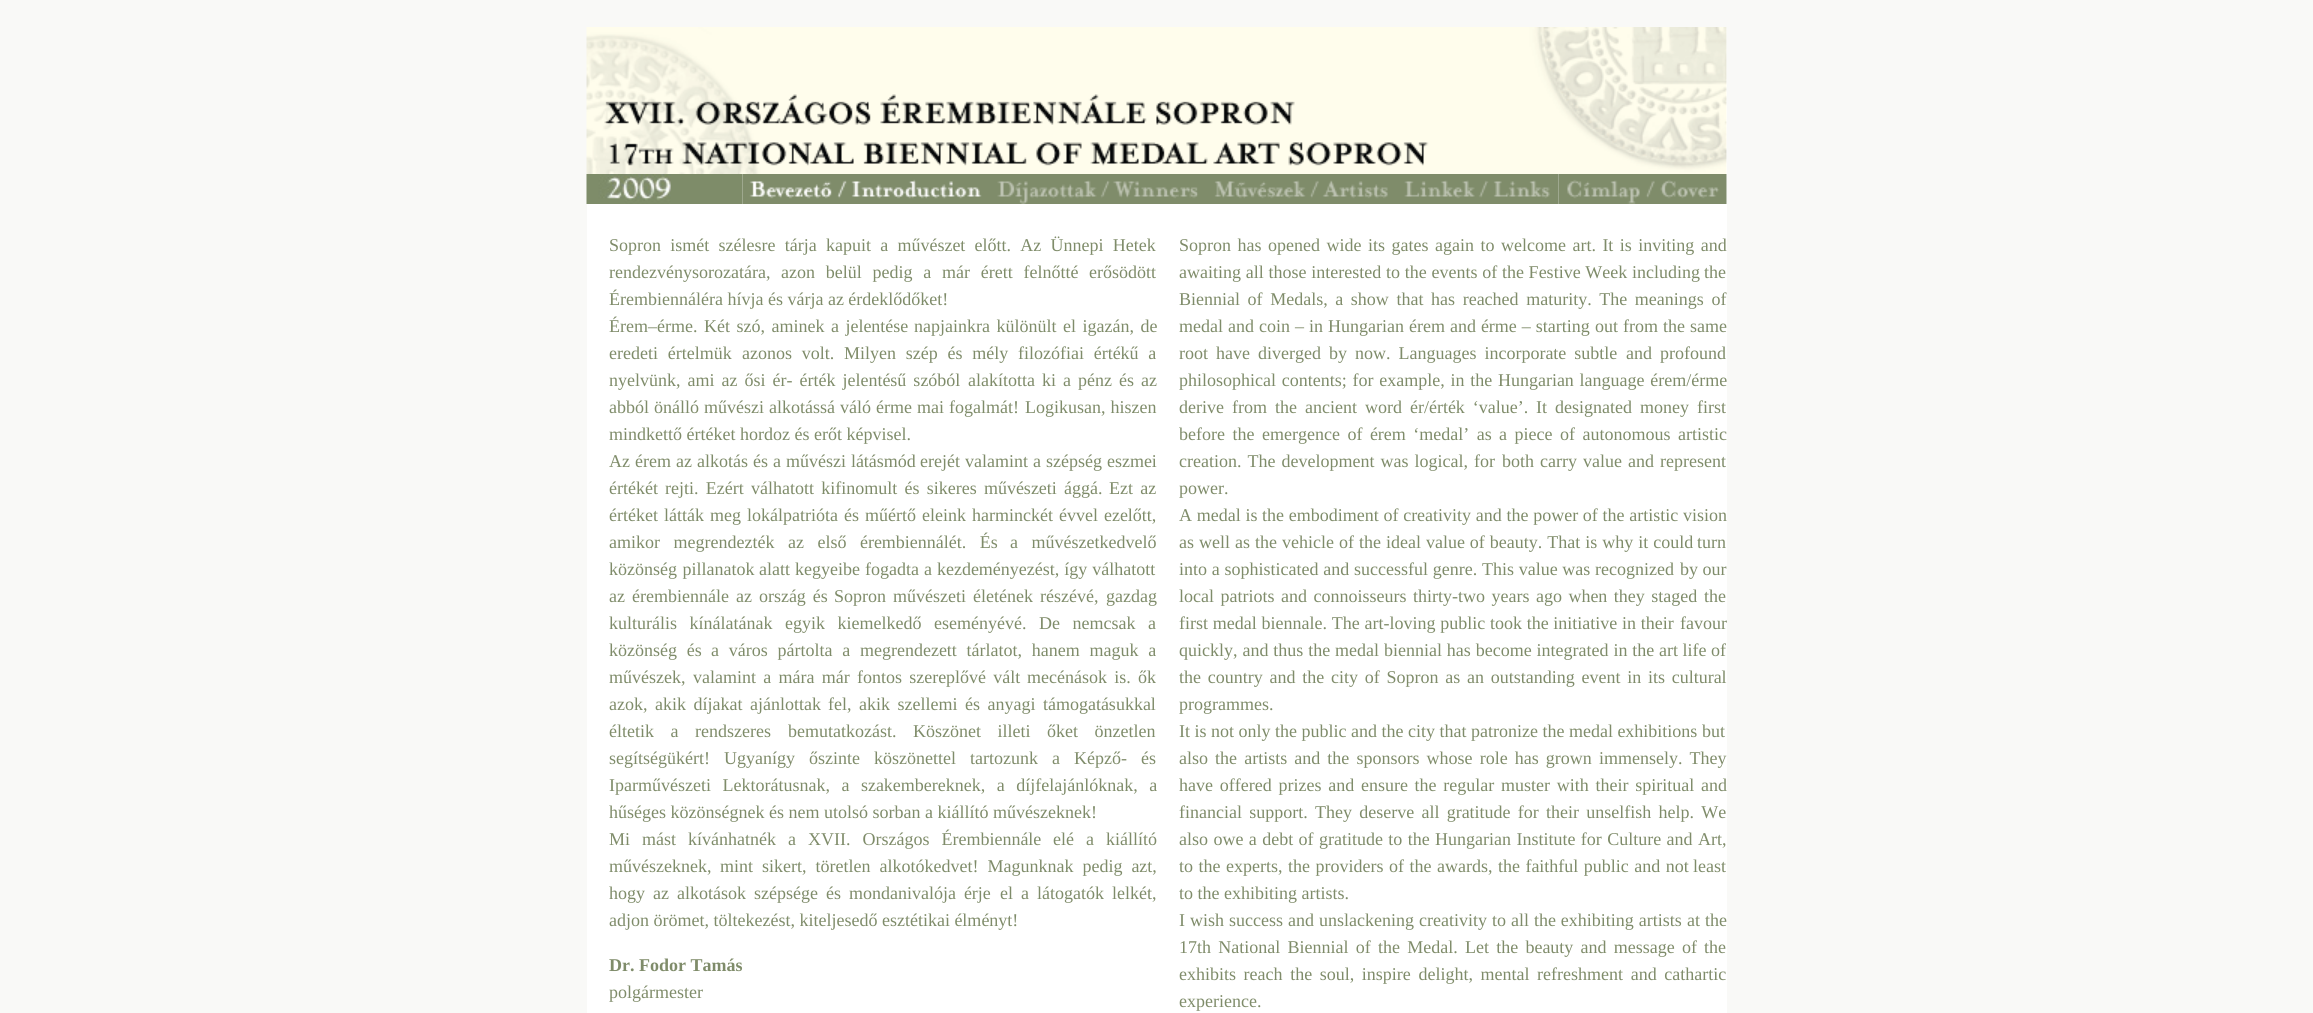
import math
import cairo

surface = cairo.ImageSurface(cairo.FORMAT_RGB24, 2313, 1013)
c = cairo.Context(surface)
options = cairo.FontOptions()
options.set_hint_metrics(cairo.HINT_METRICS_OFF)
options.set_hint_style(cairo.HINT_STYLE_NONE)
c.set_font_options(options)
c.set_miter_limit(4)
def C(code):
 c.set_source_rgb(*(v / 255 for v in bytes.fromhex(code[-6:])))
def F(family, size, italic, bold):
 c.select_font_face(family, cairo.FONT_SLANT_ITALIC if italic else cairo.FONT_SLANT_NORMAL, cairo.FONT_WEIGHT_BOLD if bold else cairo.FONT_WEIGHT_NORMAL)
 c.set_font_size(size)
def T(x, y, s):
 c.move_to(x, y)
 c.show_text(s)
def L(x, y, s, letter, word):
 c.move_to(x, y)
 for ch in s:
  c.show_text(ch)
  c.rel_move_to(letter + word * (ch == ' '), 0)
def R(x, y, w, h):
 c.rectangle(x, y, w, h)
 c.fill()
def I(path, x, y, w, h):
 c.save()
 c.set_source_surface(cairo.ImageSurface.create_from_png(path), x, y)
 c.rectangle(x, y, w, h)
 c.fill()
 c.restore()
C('f9f9f7')
c.paint()
C('ffffff')
R(587,27,1140,986)
I('1.png',586,27,1141,147)
I('2.png',586,174,157,30)
I('3.png',742,174,248,30)
I('4.png',990,174,216,30)
I('5.png',1206,174,192,30)
I('6.png',1398,174,161,30)
I('7.png',1558,174,169,30)
F('Liberation Serif',18,0,0)
C('7f8c6a')
L(609,251,'Sopron ismét szélesre tárja kapuit a művészet előtt. Az Ünnepi Hetek',0,4.75)
T(609,278,'rendezvénysorozatára,')
L(781,278,'azon belül pedig a már érett felnőtté erősödött',0,6.25)
T(609,305,'Érembiennáléra hívja és várja az érdeklődőket!')
L(609,332,'Érem–érme. Két szó, aminek a jelentése',0,2)
L(914,332,'napjainkra különült el igazán, de',0,2)
L(609,359,'eredeti értelmük',0,5.25)
L(742,359,'azonos volt. Milyen szép és mély filozófiai értékű a',0,5.25)
L(609,386,'nyelvünk, ami az ősi ér- érték jelentésű szóból',0,2.5)
L(968,386,'alakította ki a pénz és az',0,2.5)
L(609,413,'abból önálló művészi',0,.5)
L(769,413,'alkotássá váló érme mai fogalmát!',0,.5)
L(1025,413,'Logikusan, hiszen',0,.5)
T(609,440,'mindkettő értéket hordoz és erőt képvisel.')
L(609,467,'Az érem az alkotás és a művészi látásmód',0,.5)
L(920,467,'erejét valamint a szépség eszmei',0,.5)
T(609,494,'értékét')
L(665,494,'rejti. Ezért válhatott kifinomult és sikeres művészeti ággá.',0,2.75)
L(1109,494,'Ezt az',0,2.75)
L(609,521,'értéket látták meg lokálpatrióta és',0,1.5)
L(865,521,'műértő eleink harminckét évvel ezelőtt,',0,1.5)
L(609,548,'amikor megrendezték az első érembiennálét. És',0,9)
L(1010,548,'a művészetkedvelő',0,9)
L(609,575,'közönség pillanatok',0,1)
L(759,575,'alatt kegyeibe fogadta a kezdeményezést, így válhatott',0,.5)
L(609,602,'az érembiennále az ország és',0,2.5)
L(834,602,'Sopron művészeti életének részévé,',0,2.5)
T(1106,602,'gazdag')
L(609,629,'kulturális kínálatának egyik kiemelkedő',0,8)
L(934,629,'eseményévé. De nemcsak a',0,8)
L(609,656,'közönség és',0,5.25)
L(711,656,'a város pártolta a megrendezett tárlatot, hanem maguk a',0,5.25)
T(609,683,'művészek,')
L(693,683,'valamint a mára már fontos szereplővé vált',0,2.75)
L(1027,683,'mecénások is. ők',0,2.75)
L(609,710,'azok, akik díjakat ajánlottak',0,3)
L(828,710,'fel, akik szellemi és anyagi támogatásukkal',0,3)
L(609,737,'éltetik a rendszeres',0,12)
L(788,737,'bemutatkozást. Köszönet illeti őket önzetlen',0,12)
L(609,764,'segítségükért! Ugyanígy őszinte',0,9.5)
L(874,764,'köszönettel tartozunk a Képző- és',0,9.5)
L(609,791,'Iparművészeti Lektorátusnak, a szakembereknek, a díjfelajánlóknak, a',0,7)
T(609,818,'hűséges közönségnek és nem utolsó sorban a kiállító művészeknek!')
L(609,845,'Mi mást kívánhatnék a XVII. Országos Érembiennále',0,7.5)
L(1053,845,'elé a kiállító',0,7.5)
T(609,872,'művészeknek,')
L(720,872,'mint sikert, töretlen alkotókedvet! Magunknak pedig azt,',0,4.5)
L(609,899,'hogy az alkotások szépsége és mondanivalója érje',0,3.5)
L(1000,899,'el a látogatók lelkét,',0,3.5)
T(609,926,'adjon örömet, töltekezést, kiteljesedő esztétikai élményt!')
F('Liberation Serif',18,0,1)
T(609,971,'Dr. Fodor Tamás')
F('Liberation Serif',18,0,0)
T(609,998,'polgármester')
L(1179,251,'Sopron has opened wide its gates again to welcome art. It is inviting and',0,2)
L(1179,278,'awaiting all those interested to the events of the Festive Week including',0,.25)
T(1704,278,'the')
L(1179,305,'Biennial of Medals, a show that has reached maturity. The meanings of',0,3.1)
L(1179,332,'medal and coin – in Hungarian érem and érme – starting',0,.5)
L(1595,332,'out from the same',0,.5)
L(1179,359,'root have diverged by now. Languages incorporate subtle',0,3.5)
L(1626,359,'and profound',0,3.5)
L(1179,386,'philosophical contents; for example, in the Hungarian language érem/érme',0,1.25)
L(1179,413,'derive from the ancient word ér/érték ‘value’.',0,3.5)
L(1536,413,'It designated money first',0,3.5)
L(1179,440,'before the emergence of érem ‘medal’ as',0,3)
L(1499,440,'a piece of autonomous artistic',0,3)
L(1179,467,'creation. The development was logical, for',0,1.5)
L(1502,467,'both carry value and represent',0,1.5)
T(1179,494,'power.')
L(1179,521,'A medal is the embodiment of creativity and the power of the artistic vision',0,.2)
L(1179,548,'as well as the vehicle of the ideal value of beauty. That is why it could',0,.5)
T(1697,548,'turn')
L(1179,575,'into a sophisticated and successful genre. This value was recognized',0,.25)
T(1680,575,'by our')
L(1179,602,'local patriots and connoisseurs thirty-two years ago when they staged',0,2)
T(1704,602,'the')
L(1179,629,'first medal biennale. The art-loving public took the initiative in their',0,.25)
T(1680,629,'favour')
L(1179,656,'quickly, and thus the medal biennial has become integrated in the',0,.4)
T(1659,656,'art life of')
L(1179,683,'the country and the city of Sopron as an outstanding event in its cultural',0,2.25)
T(1179,710,'programmes.')
T(1179,737,'It is not only the public and the city that patronize the medal exhibitions but')
L(1179,764,'also the artists and the sponsors whose role has grown immensely. They',0,2.6)
L(1179,791,'have offered prizes and ensure the regular muster with their spiritual and',0,2.25)
L(1179,818,'financial support. They deserve all gratitude for their unselfish help. We',0,2.75)
L(1179,845,'also owe a debt of gratitude to the Hungarian Institute for Culture and Art,',0,.9)
L(1179,872,'to the experts, the providers of the awards, the faithful public and not',0,1)
T(1693,872,'least')
T(1179,899,'to the exhibiting artists.')
L(1179,926,'I wish success and unslackening creativity to all the exhibiting artists',0,.5)
L(1687,926,'at the',0,.5)
L(1179,953,'17th National Biennial of the Medal. Let the beauty and message of',0,2.75)
T(1704,953,'the')
L(1179,980,'exhibits reach the soul, inspire delight, mental refreshment and cathartic',0,3.1)
T(1179,1007,'experience.')
surface.write_to_png('o.png')
